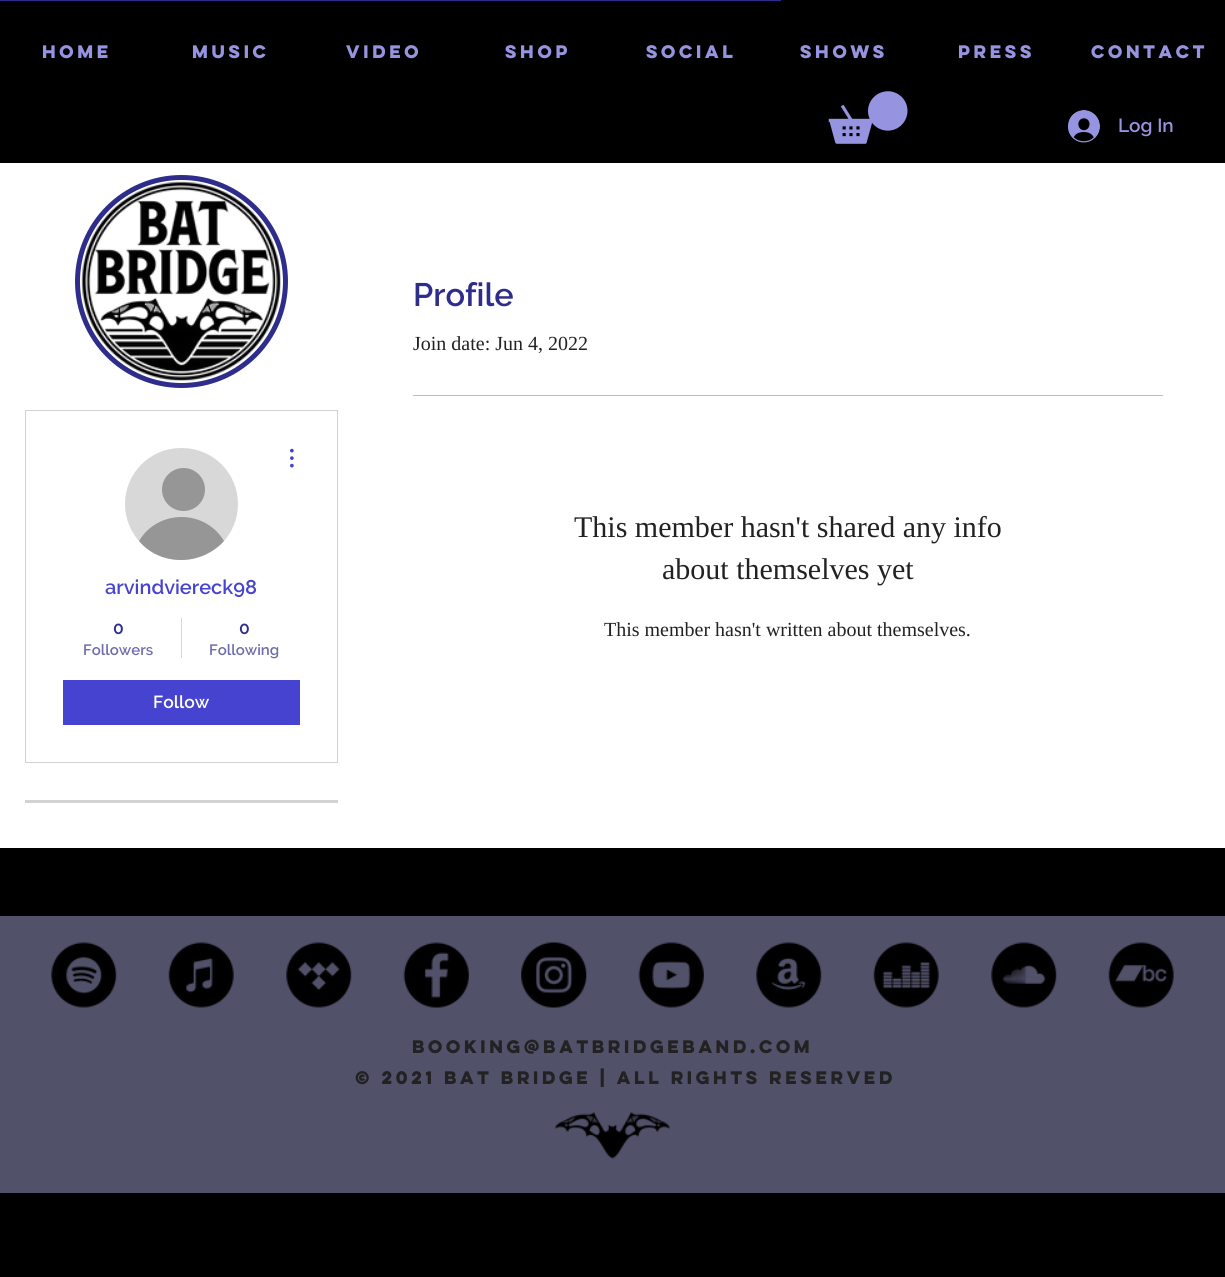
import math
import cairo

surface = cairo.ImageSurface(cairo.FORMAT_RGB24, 1225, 1277)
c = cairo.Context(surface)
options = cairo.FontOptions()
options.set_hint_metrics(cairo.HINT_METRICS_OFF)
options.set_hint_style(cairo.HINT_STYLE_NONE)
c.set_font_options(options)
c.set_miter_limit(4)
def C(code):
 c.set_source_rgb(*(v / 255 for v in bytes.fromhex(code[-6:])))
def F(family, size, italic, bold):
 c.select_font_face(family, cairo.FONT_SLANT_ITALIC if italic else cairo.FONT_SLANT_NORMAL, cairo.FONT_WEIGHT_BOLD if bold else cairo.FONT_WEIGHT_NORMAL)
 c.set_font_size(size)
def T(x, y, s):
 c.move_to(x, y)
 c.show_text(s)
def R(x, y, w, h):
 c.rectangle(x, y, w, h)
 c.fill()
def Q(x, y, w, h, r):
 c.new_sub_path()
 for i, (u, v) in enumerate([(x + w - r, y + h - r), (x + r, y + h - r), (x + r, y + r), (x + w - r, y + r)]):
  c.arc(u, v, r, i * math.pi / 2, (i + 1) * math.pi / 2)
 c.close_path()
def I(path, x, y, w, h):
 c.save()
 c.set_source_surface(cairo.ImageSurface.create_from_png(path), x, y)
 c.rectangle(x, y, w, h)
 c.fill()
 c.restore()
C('000000')
c.paint()
C('2f2d8b')
R(0,0,781,1)
F('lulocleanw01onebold',16.25,0,1)
C('9694e0')
T(42,58,'HOME')
T(192,58,'MUSIC')
T(346,58,'VIDEO')
T(505,58,'SHOP')
T(646,58,'SOCIAL')
T(800,58,'SHOWS')
T(958,58,'PRESS')
T(1091,58,'CONTACT')
I('1.png',828,91,80,53)
I('2.png',1068,110,32,33)
F('Raleway SemiBold',19,0,0)
T(1118,132,'Log In')
C('ffffff')
R(0,163,1225,685)
c.rectangle(25.5,410.5,312,352)
C('d3d3d3')
c.set_line_width(1)
c.stroke()
C('d8d8d8')
Q(125,448,113,112,56)
c.fill()
C('969696')
c.arc(183.5,489.5,21.5,0,2 * math.pi)
c.fill()
c.new_path()
c.move_to(181,560)
c.curve_to(197,560,213,553,224,541)
c.curve_to(205,509,158,509,139,541)
c.curve_to(149,553,164,560,181,560)
c.close_path()
c.fill()
I('3.png',290,448,4,20)
F('Raleway SemiBold',20,0,0)
C('4643d1')
T(105,594,'arvindviereck98')
F('Raleway SemiBold',17.5,0,0)
C('2f2d8b')
T(113,634,'0')
F('Raleway SemiBold',15,0,0)
C('6d6cae')
T(83,655,'Followers')
C('d5d5e8')
R(181,618,1,40)
F('Raleway SemiBold',17.5,0,0)
C('2f2d8b')
T(239,634,'0')
F('Raleway SemiBold',15,0,0)
C('6d6cae')
T(209,655,'Following')
C('4643d1')
R(63,680,237,45)
F('Raleway SemiBold',17.5,0,0)
C('ffffff')
T(153,708,'Follow')
C('d3d3d3')
R(25,800,313,3)
c.new_path()
c.arc(181.5,281.5,104,0,2 * math.pi)
C('2f2d8b')
c.set_line_width(5)
c.stroke()
I('4.png',81,181,200,200)
F('Raleway SemiBold',32.5,0,0)
T(413,306,'Profile')
F('Liberation Serif',20,0,0)
C('222222')
T(413,350,'Join date: Jun 4, 2022')
C('bdbdbd')
R(413,395,750,1)
F('Liberation Serif',30,0,0)
C('222222')
T(574,537,'This member hasn\'t shared any info')
T(662,579,'about themselves yet')
F('Liberation Serif',20,0,0)
T(604,636,'This member hasn\'t written about themselves.')
C('52516a')
R(0,916,1225,277)
I('5.png',51,942,66,66)
I('6.png',168,942,66,66)
I('7.png',286,942,66,66)
I('8.png',403,942,66,66)
I('9.png',521,942,66,66)
I('10.png',638,942,66,66)
I('11.png',756,942,66,66)
I('12.png',873,942,66,66)
I('13.png',991,942,66,66)
I('14.png',1108,942,66,66)
F('lulocleanw01onebold',16.25,0,1)
C('222222')
T(412,1053,'booking@batbridgeband.com')
T(355,1084,'© 2021 BAT BRIDGE | All Rights Reserved')
I('15.png',555,1112,115,47)
surface.write_to_png('o.png')
